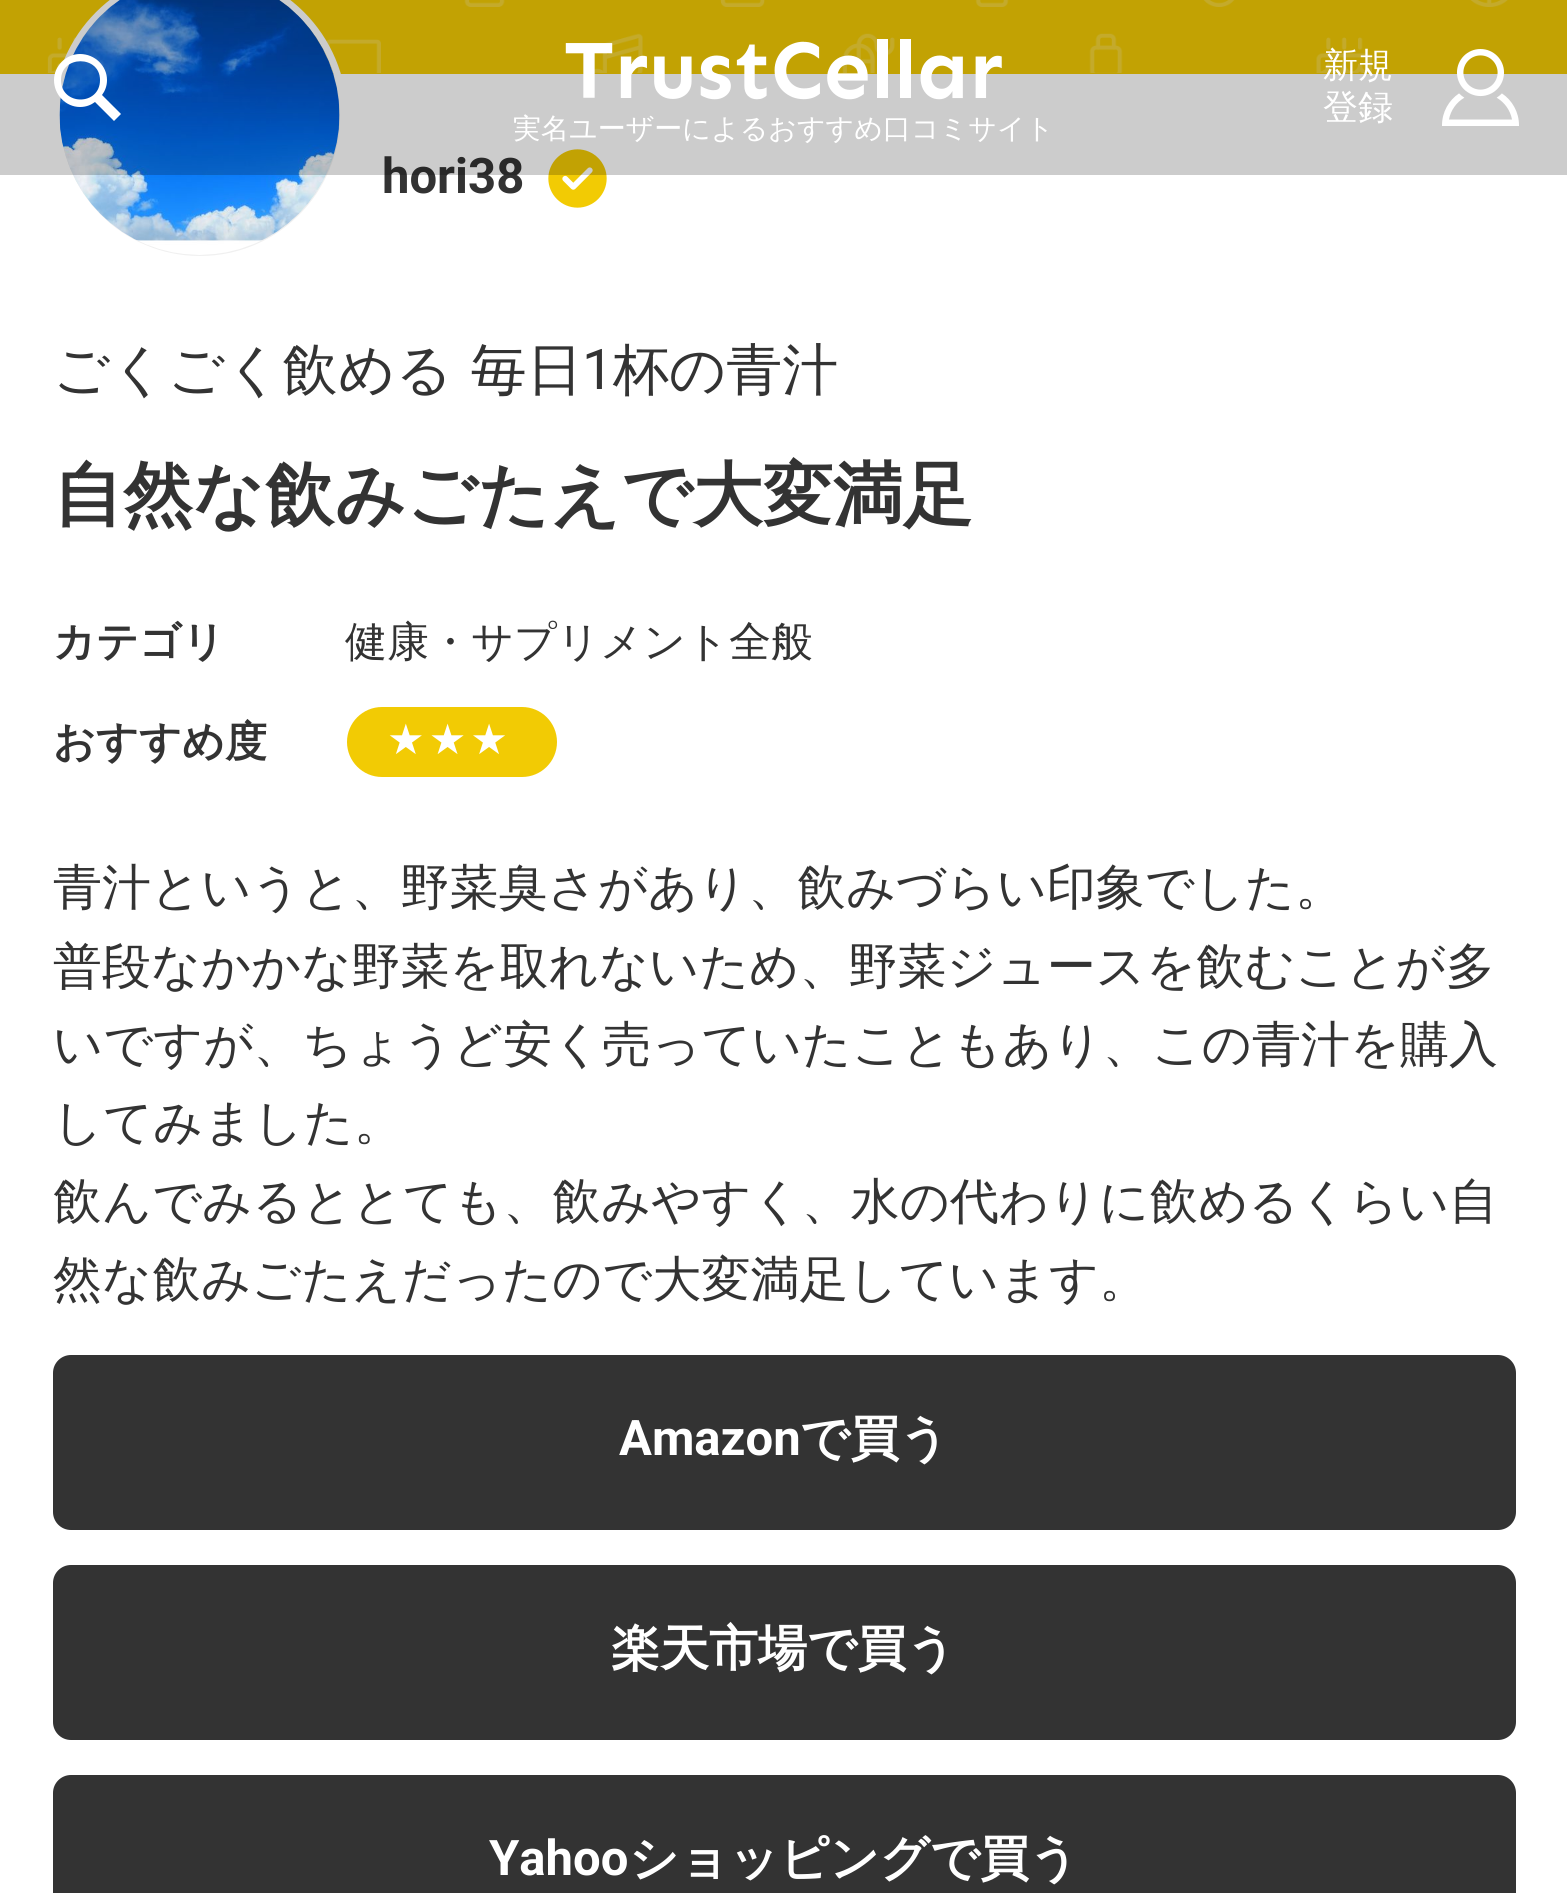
import math
import cairo

surface = cairo.ImageSurface(cairo.FORMAT_RGB24, 1567, 1893)
c = cairo.Context(surface)
options = cairo.FontOptions()
options.set_hint_metrics(cairo.HINT_METRICS_OFF)
options.set_hint_style(cairo.HINT_STYLE_NONE)
c.set_font_options(options)
c.set_miter_limit(4)
def C(code):
 c.set_source_rgb(*(v / 255 for v in bytes.fromhex(code[-6:])))
def F(family, size, italic, bold):
 c.select_font_face(family, cairo.FONT_SLANT_ITALIC if italic else cairo.FONT_SLANT_NORMAL, cairo.FONT_WEIGHT_BOLD if bold else cairo.FONT_WEIGHT_NORMAL)
 c.set_font_size(size)
def T(x, y, s):
 c.move_to(x, y)
 c.show_text(s)
def L(x, y, s, letter, word):
 c.move_to(x, y)
 for ch in s:
  c.show_text(ch)
  c.rel_move_to(letter + word * (ch == ' '), 0)
def R(x, y, w, h):
 c.rectangle(x, y, w, h)
 c.fill()
def Q(x, y, w, h, r):
 c.new_sub_path()
 for i, (u, v) in enumerate([(x + w - r, y + h - r), (x + r, y + h - r), (x + r, y + r), (x + w - r, y + r)]):
  c.arc(u, v, r, i * math.pi / 2, (i + 1) * math.pi / 2)
 c.close_path()
def I(path, x, y, w, h):
 c.save()
 c.set_source_surface(cairo.ImageSurface.create_from_png(path), x, y)
 c.rectangle(x, y, w, h)
 c.fill()
 c.restore()
C('ffffff')
c.paint()
C('f2cb04')
R(0,0,1567,74)
I('3.png',47,0,1461,73)
c.arc(200,116,143.5,0,2 * math.pi)
C('ffffff')
c.set_line_width(7)
c.stroke()
C('f0f0f0')
c.arc(200,116,140,0,2 * math.pi)
c.fill()
I('4.png',59,0,281,255)
F('Roboto',49,0,1)
C('333333')
T(382,193,'hori38')
I('5.png',548,149,59,59)
c.set_source_rgba(0,0,0,0.2)
R(0,0,1567,175)
C('ffffff')
c.new_path()
c.move_to(121,114)
c.line_to(102,95)
c.curve_to(105,91,107,86,107,80)
c.curve_to(107,66,95,54,80,54)
c.curve_to(66,54,54,66,54,80)
c.curve_to(54,95,66,107,80,107)
c.curve_to(86,107,91,105,95,102)
c.line_to(114,121)
c.close_path()
c.move_to(61,80)
c.curve_to(61,55,100,55,100,80)
c.curve_to(100,106,61,106,61,80)
c.close_path()
c.fill()
F('WenQuanYi Zen Hei Medium',35,0,0)
T(1323,77,'新規')
T(1323,119,'登録')
I('1.png',1442,49,77,77)
I('2.png',565,39,437,61)
F('WenQuanYi Zen Hei Medium',28,0,0)
T(513,138,'実名ユーザーによるおすすめ口コミサイト')
F('WenQuanYi Zen Hei Medium',56,0,0)
C('333333')
L(53,389,'ごくごく飲める 毎日',0,1)
F('Roboto',56,0,0)
T(582,389,'1')
F('WenQuanYi Zen Hei Medium',56,0,0)
T(613,389,'杯の青汁')
F('WenQuanYi Zen Hei',70,0,1)
T(53,519,'自然な飲みごたえで大変満足')
F('WenQuanYi Zen Hei',42,0,1)
T(53,656,'カテゴリ')
F('WenQuanYi Zen Hei Medium',42,0,0)
T(345,656,'健康・サプリメント全般')
F('WenQuanYi Zen Hei',42,0,1)
T(53,756,'おすすめ度')
C('f2cb04')
Q(347,707,210,70,35)
c.fill()
F('DejaVu Sans',42,0,0)
C('ffffff')
L(387,754,'★★★',4,0)
F('WenQuanYi Zen Hei Medium',49,0,0)
C('333333')
T(53,904,'青汁というと、野菜臭さがあり、飲みづらい印象でした。')
T(53,983,'普段なかかな野菜を取れないため、野菜ジュースを飲むことが多')
T(53,1061,'いですが、ちょうど安く売っていたこともあり、この青汁を購入')
T(53,1139,'してみました。')
T(53,1218,'飲んでみるととても、飲みやすく、水の代わりに飲めるくらい自')
T(53,1296,'然な飲みごたえだったので大変満足しています。')
Q(53,1355,1463,175,18)
c.fill()
F('Roboto',49,0,1)
C('ffffff')
T(619,1455,'Amazon')
F('WenQuanYi Zen Hei',49,0,1)
T(800,1455,'で買う')
C('333333')
Q(53,1565,1463,175,18)
c.fill()
C('ffffff')
T(611,1665,'楽天市場で買う')
C('333333')
Q(53,1775,1463,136,18)
c.fill()
F('Roboto',49,0,1)
C('ffffff')
T(489,1875,'Yahoo')
F('WenQuanYi Zen Hei',49,0,1)
T(629,1875,'ショッピングで買う')
surface.write_to_png('o.png')
